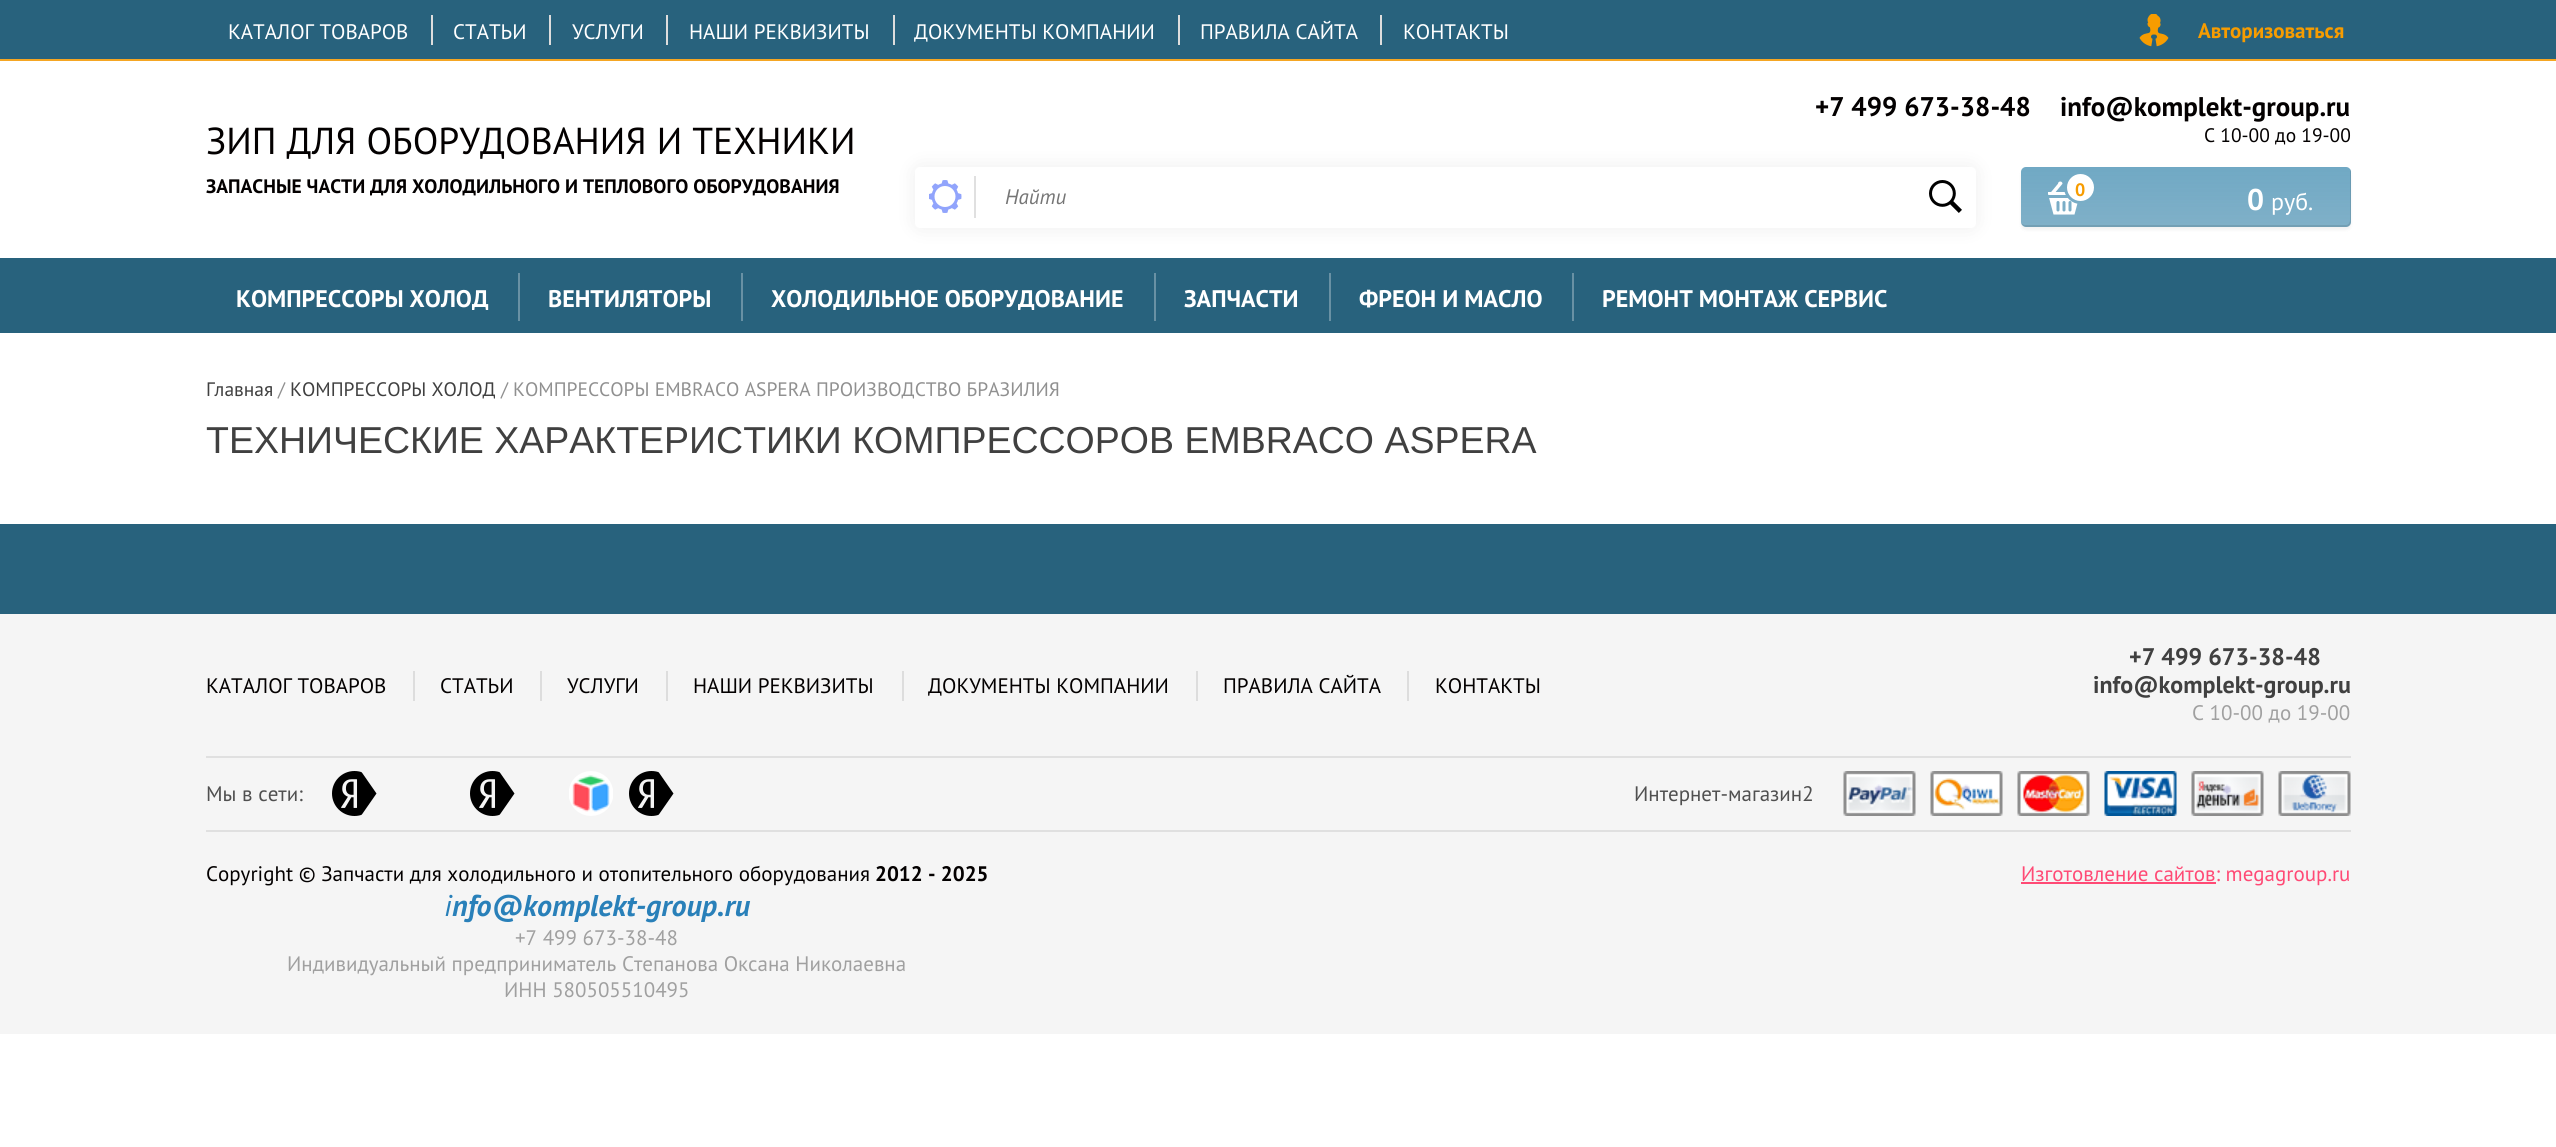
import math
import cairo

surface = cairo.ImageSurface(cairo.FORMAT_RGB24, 2556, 1147)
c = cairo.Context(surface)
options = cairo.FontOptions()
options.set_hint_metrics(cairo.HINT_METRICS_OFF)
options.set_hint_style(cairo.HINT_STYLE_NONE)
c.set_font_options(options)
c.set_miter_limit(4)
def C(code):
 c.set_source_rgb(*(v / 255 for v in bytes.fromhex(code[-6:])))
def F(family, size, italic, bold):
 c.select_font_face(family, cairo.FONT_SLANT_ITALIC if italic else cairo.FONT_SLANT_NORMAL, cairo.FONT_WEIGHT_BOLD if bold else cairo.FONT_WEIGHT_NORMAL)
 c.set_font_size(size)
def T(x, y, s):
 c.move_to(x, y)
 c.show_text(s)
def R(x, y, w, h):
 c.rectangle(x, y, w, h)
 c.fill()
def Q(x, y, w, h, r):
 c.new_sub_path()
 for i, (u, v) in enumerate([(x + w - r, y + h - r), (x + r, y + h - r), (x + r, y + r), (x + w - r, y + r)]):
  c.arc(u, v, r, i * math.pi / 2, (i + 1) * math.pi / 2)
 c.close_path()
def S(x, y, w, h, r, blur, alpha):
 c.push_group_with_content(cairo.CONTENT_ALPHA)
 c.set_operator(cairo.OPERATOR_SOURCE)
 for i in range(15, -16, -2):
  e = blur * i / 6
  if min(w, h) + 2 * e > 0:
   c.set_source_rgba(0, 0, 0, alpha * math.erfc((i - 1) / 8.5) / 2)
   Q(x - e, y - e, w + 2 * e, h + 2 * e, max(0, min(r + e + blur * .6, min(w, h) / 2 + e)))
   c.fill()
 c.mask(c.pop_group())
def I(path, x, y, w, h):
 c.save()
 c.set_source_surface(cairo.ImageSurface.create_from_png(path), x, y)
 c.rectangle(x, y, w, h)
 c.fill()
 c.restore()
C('ffffff')
c.paint()
C('28627d')
R(0,0,2556,59)
C('f5a623')
R(0,59,2556,2)
F('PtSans',21,0,0)
C('ffffff')
T(228,39,'КАТАЛОГ ТОВАРОВ')
C('dddddd')
R(431,15,2,30)
C('ffffff')
T(453,39,'СТАТЬИ')
C('dddddd')
R(549,15,2,30)
C('ffffff')
T(572,39,'УСЛУГИ')
C('dddddd')
R(666,15,2,30)
C('ffffff')
T(689,39,'НАШИ РЕКВИЗИТЫ')
C('dddddd')
R(893,15,2,30)
C('ffffff')
T(914,39,'ДОКУМЕНТЫ КОМПАНИИ')
C('dddddd')
R(1178,15,2,30)
C('ffffff')
T(1200,39,'ПРАВИЛА САЙТА')
C('dddddd')
R(1380,15,2,30)
C('ffffff')
T(1403,39,'КОНТАКТЫ')
I('1.png',2139,14,30,33)
F('PtSans',21,0,1)
C('f79c00')
T(2198,38,'Авторизоваться')
F('PtSans',37.5,0,0)
C('030000')
T(206,154,'ЗИП ДЛЯ ОБОРУДОВАНИЯ И ТЕХНИКИ')
F('PtSans',19.5,0,1)
T(206,193,'ЗАПАСНЫЕ ЧАСТИ ДЛЯ ХОЛОДИЛЬНОГО И ТЕПЛОВОГО ОБОРУДОВАНИЯ')
F('PtSans',27,0,1)
T(1815,116,'+7 499 673-38-48')
T(2060,116,'info@komplekt-group.ru')
F('PtSans',19.5,0,0)
T(2204,142,'С 10-00 до 19-00')
C('28627d')
R(0,258,2556,75)
C('000000')
S(915,167,1061,61,5,10.5,.07)
C('ffffff')
Q(915,167,1061,61,5)
c.fill()
I('2.png',929,180,33,33)
C('e0e0e0')
R(974,176,2,42)
F('PtSans',21,1,0)
C('757575')
T(1005,204,'Найти')
I('3.png',1929,180,33,33)
c.save()
c.set_fill_rule(cairo.FILL_RULE_EVEN_ODD)
c.new_path()
c.move_to(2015,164)
c.line_to(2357,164)
c.line_to(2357,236)
c.line_to(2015,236)
c.close_path()
c.move_to(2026,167)
c.line_to(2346,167)
c.curve_to(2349,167,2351,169,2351,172)
c.line_to(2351,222)
c.curve_to(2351,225,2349,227,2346,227)
c.line_to(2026,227)
c.curve_to(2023,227,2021,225,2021,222)
c.line_to(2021,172)
c.curve_to(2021,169,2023,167,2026,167)
c.close_path()
c.clip()
C('000000')
S(2021,170,330,60,5,1.5,.05)
c.restore()
gradient = cairo.LinearGradient(2186,227,2186,167)
gradient.add_color_stop_rgba(0,0,0.38,0.569,.5)
gradient.add_color_stop_rgba(1,0,0.396,0.588,.56)
c.set_source(gradient)
Q(2021,167,330,60,5)
c.fill()
c.set_source_rgba(0,0,0,0.1)
c.new_path()
c.move_to(2021,223)
c.curve_to(2022,225,2024,227,2026,227)
c.line_to(2346,227)
c.curve_to(2349,227,2351,225,2351,222)
c.line_to(2351,172)
c.curve_to(2351,171,2351,170,2350,169)
c.line_to(2350,220)
c.curve_to(2350,223,2348,225,2346,225)
c.line_to(2025,225)
c.curve_to(2024,225,2022,224,2021,223)
c.close_path()
c.fill()
I('4.png',2048,174,46,41)
F('PtSans',18,0,1)
C('f79c00')
T(2075,196,'0')
F('PtSans',30,0,1)
C('ffffff')
T(2247,210,'0')
F('PtSans',24,0,0)
T(2271,210,'руб.')
F('PtSans',24,0,1)
T(236,307,'КОМПРЕССОРЫ ХОЛОД')
C('6991a4')
R(518,273,2,48)
C('ffffff')
T(548,307,'ВЕНТИЛЯТОРЫ')
C('6991a4')
R(741,273,2,48)
C('ffffff')
T(771,307,'ХОЛОДИЛЬНОЕ ОБОРУДОВАНИЕ')
C('6991a4')
R(1154,273,2,48)
C('ffffff')
T(1184,307,'ЗАПЧАСТИ')
C('6991a4')
R(1329,273,2,48)
C('ffffff')
T(1359,307,'ФРЕОН И МАСЛО')
C('6991a4')
R(1572,273,2,48)
C('ffffff')
T(1602,307,'РЕМОНТ МОНТАЖ СЕРВИС')
F('PtSans',19.5,0,0)
C('404040')
T(206,396,'Главная')
C('909090')
T(278,396,'/')
C('404040')
T(290,396,'КОМПРЕССОРЫ ХОЛОД')
C('909090')
T(501,396,'/ КОМПРЕССОРЫ EMBRACO ASPERA ПРОИЗВОДСТВО БРАЗИЛИЯ')
F('Liberation Sans',37.5,0,0)
C('404040')
T(206,453,'ТЕХНИЧЕСКИЕ ХАРАКТЕРИСТИКИ КОМПРЕССОРОВ EMBRACO ASPERA')
C('f5f5f5')
R(0,614,2556,420)
C('28627d')
R(0,524,2556,90)
C('e0e0e0')
R(206,756,2145,2)
F('PtSans',21,0,0)
C('030000')
T(206,693,'КАТАЛОГ ТОВАРОВ')
C('dddddd')
R(413,671,2,30)
C('030000')
T(440,693,'СТАТЬИ')
C('dddddd')
R(540,671,2,30)
C('030000')
T(567,693,'УСЛУГИ')
C('dddddd')
R(666,671,2,30)
C('030000')
T(693,693,'НАШИ РЕКВИЗИТЫ')
C('dddddd')
R(902,671,2,30)
C('030000')
T(928,693,'ДОКУМЕНТЫ КОМПАНИИ')
C('dddddd')
R(1196,671,2,30)
C('030000')
T(1223,693,'ПРАВИЛА САЙТА')
C('dddddd')
R(1407,671,2,30)
C('030000')
T(1435,693,'КОНТАКТЫ')
F('PtSans',24,0,1)
C('404040')
T(2129,665,'+7 499 673-38-48')
T(2093,693,'info@komplekt-group.ru')
F('PtSans',21,0,0)
C('a0a0a0')
T(2192,720,'С 10-00 до 19-00')
C('e0e0e0')
R(206,830,2145,2)
C('505050')
T(206,801,'Мы в сети:')
I('5.png',332,771,45,45)
I('5.png',470,771,45,45)
I('6.png',569,771,44,45)
I('5.png',629,771,45,45)
T(1634,801,'Интернет-магазин2')
I('7.png',1843,771,73,45)
I('8.png',1930,771,73,45)
I('9.png',2017,771,73,45)
I('10.png',2104,771,73,45)
I('11.png',2191,771,73,45)
I('12.png',2278,771,73,45)
C('030000')
T(206,881,'Copyright © Запчасти для холодильного и отопительного оборудования')
F('PtSans',21,0,1)
T(875,881,'2012 - 2025')
F('PtSans',30,1,0)
C('2980b9')
T(444,916,'i')
F('PtSans',30,1,1)
T(452,916,'nfo@komplekt-group.ru')
F('PtSans',21,0,0)
C('a0a0a0')
T(515,945,'+7 499 673-38-48')
T(287,971,'Индивидуальный предприниматель Степанова Оксана Николаевна')
T(504,997,'ИНН 580505510495')
C('ff4a75')
R(2021,882,195,2)
T(2021,881,'Изготовление сайтов: megagroup.ru')
surface.write_to_png('o.png')
